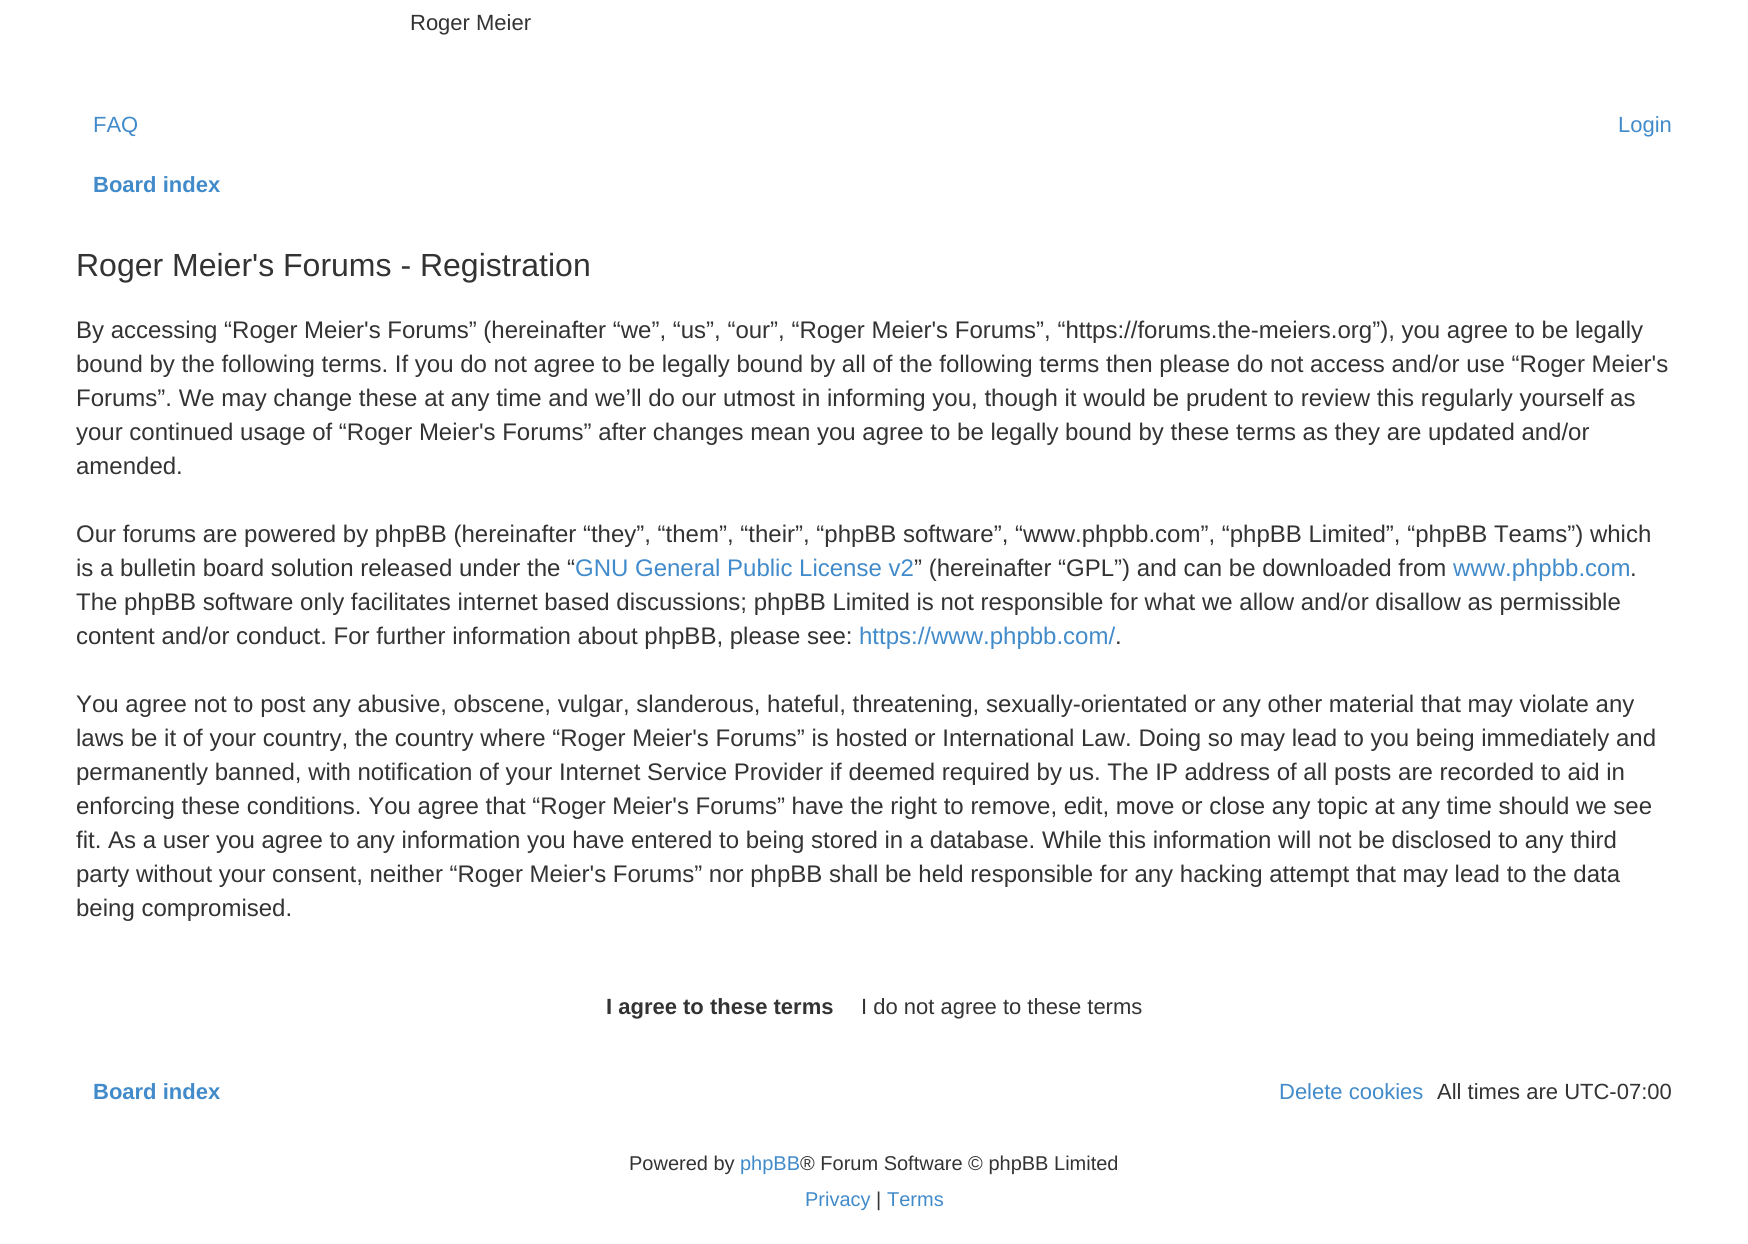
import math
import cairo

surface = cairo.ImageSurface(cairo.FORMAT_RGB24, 1748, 1244)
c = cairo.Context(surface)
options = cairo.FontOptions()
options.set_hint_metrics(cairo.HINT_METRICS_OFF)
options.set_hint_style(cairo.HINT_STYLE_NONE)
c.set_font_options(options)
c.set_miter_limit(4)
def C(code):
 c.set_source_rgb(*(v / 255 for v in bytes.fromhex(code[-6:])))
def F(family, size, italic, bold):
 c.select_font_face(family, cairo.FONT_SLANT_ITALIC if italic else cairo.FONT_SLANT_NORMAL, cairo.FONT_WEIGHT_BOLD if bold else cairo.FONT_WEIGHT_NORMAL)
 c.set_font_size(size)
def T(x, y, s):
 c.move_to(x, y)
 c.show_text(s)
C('ffffff')
c.paint()
F('Liberation Sans',22,0,0)
C('333333')
T(410,30,'Roger Meier')
C('428bca')
T(93,132,'FAQ')
T(1618,132,'Login')
F('Liberation Sans',22,0,1)
T(93,192,'Board index')
F('Liberation Sans',32,0,0)
C('333333')
T(76,276,'Roger Meier\'s Forums - Registration')
F('Liberation Sans',24,0,0)
T(76,338,'By accessing “Roger Meier\'s Forums” (hereinafter “we”, “us”, “our”, “Roger Meier\'s Forums”, “https://forums.the-meiers.org”), you agree to be legally')
T(76,372,'bound by the following terms. If you do not agree to be legally bound by all of the following terms then please do not access and/or use “Roger Meier\'s')
T(76,406,'Forums”. We may change these at any time and we’ll do our utmost in informing you, though it would be prudent to review this regularly yourself as')
T(76,440,'your continued usage of “Roger Meier\'s Forums” after changes mean you agree to be legally bound by these terms as they are updated and/or')
T(76,474,'amended.')
T(76,542,'Our forums are powered by phpBB (hereinafter “they”, “them”, “their”, “phpBB software”, “www.phpbb.com”, “phpBB Limited”, “phpBB Teams”) which')
T(76,576,'is a bulletin board solution released under the “')
C('428bca')
T(575,576,'GNU General Public License v2')
C('333333')
T(914,576,'” (hereinafter “GPL”) and can be downloaded from')
C('428bca')
T(1453,576,'www.phpbb.com')
C('333333')
T(1630,576,'.')
T(76,610,'The phpBB software only facilitates internet based discussions; phpBB Limited is not responsible for what we allow and/or disallow as permissible')
T(76,644,'content and/or conduct. For further information about phpBB, please see:')
C('428bca')
T(859,644,'https://www.phpbb.com/')
C('333333')
T(1115,644,'.')
T(76,712,'You agree not to post any abusive, obscene, vulgar, slanderous, hateful, threatening, sexually-orientated or any other material that may violate any')
T(76,746,'laws be it of your country, the country where “Roger Meier\'s Forums” is hosted or International Law. Doing so may lead to you being immediately and')
T(76,780,'permanently banned, with notification of your Internet Service Provider if deemed required by us. The IP address of all posts are recorded to aid in')
T(76,814,'enforcing these conditions. You agree that “Roger Meier\'s Forums” have the right to remove, edit, move or close any topic at any time should we see')
T(76,848,'fit. As a user you agree to any information you have entered to being stored in a database. While this information will not be disclosed to any third')
T(76,882,'party without your consent, neither “Roger Meier\'s Forums” nor phpBB shall be held responsible for any hacking attempt that may lead to the data')
T(76,916,'being compromised.')
F('Liberation Sans',22,0,1)
T(606,1014,'I agree to these terms')
F('Liberation Sans',22,0,0)
T(861,1014,'I do not agree to these terms')
F('Liberation Sans',22,0,1)
C('428bca')
T(93,1099,'Board index')
F('Liberation Sans',22,0,0)
T(1279,1099,'Delete cookies')
C('333333')
T(1437,1099,'All times are UTC-07:00')
F('Liberation Sans',20,0,0)
T(629,1170,'Powered by')
C('428bca')
T(740,1170,'phpBB')
C('333333')
T(800,1170,'® Forum Software © phpBB Limited')
C('428bca')
T(805,1206,'Privacy')
C('333333')
T(876,1206,'|')
C('428bca')
T(887,1206,'Terms')
surface.write_to_png('o.png')
